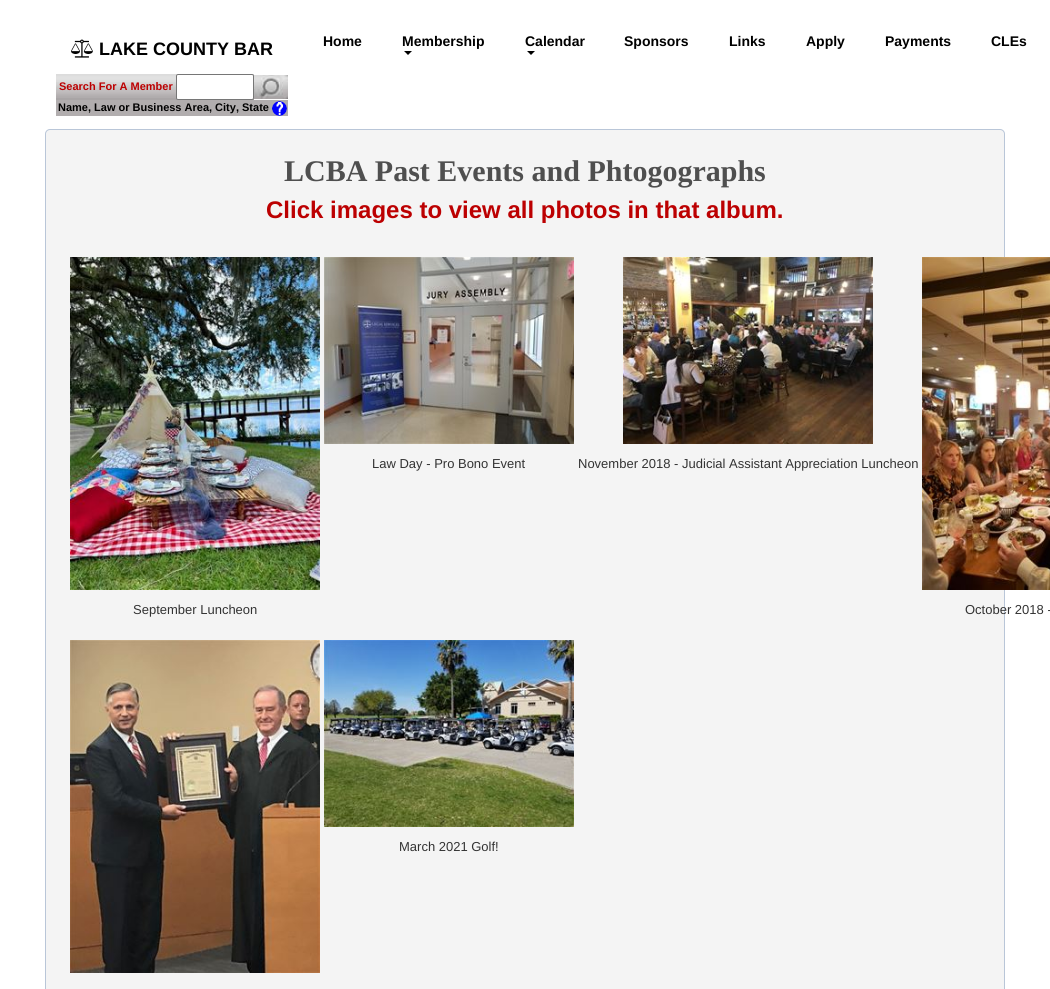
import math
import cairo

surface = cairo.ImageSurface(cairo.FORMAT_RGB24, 1050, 989)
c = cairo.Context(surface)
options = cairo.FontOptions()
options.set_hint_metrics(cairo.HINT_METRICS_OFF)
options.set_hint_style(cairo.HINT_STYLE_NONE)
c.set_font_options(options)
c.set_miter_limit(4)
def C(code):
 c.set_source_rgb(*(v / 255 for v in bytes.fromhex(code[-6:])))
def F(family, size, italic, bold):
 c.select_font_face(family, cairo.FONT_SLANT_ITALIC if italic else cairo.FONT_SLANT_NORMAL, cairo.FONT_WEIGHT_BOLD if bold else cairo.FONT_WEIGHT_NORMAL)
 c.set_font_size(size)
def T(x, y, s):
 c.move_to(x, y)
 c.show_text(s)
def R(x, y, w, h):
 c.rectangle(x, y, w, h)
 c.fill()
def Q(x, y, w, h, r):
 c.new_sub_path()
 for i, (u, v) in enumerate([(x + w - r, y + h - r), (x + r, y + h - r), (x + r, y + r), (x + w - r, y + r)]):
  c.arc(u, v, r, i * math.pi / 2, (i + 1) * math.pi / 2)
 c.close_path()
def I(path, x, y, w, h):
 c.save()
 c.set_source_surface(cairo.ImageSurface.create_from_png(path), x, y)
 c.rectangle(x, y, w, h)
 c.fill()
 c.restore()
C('ffffff')
c.paint()
I('1.png',71,39,22,19)
F('Liberation Sans',18,0,1)
C('000000')
T(99,55,'LAKE COUNTY BAR')
I('2.png',56,74,120,26)
F('Liberation Sans',11,0,1)
C('bc0001')
T(59,90,'Search For A Member')
I('3.png',176,74,78,26)
C('ffffff')
Q(176.5,74.5,77,25,1.5)
c.fill_preserve()
C('767676')
c.set_line_width(1)
c.stroke()
I('4.png',254,75,34,24)
C('b1adae')
R(56,100,232,16)
C('000000')
T(58,111,'Name, Law or Business Area, City, State')
I('5.png',272,101,15,15)
F('Liberation Sans',14,0,1)
T(323,46,'Home')
T(402,46,'Membership')
c.new_path()
c.move_to(404,51)
c.line_to(412,51)
c.line_to(408,55)
c.close_path()
c.fill()
T(525,46,'Calendar')
c.new_path()
c.move_to(527,51)
c.line_to(535,51)
c.line_to(531,55)
c.close_path()
c.fill()
T(624,46,'Sponsors')
T(729,46,'Links')
T(806,46,'Apply')
T(885,46,'Payments')
T(991,46,'CLEs')
C('f4f4f4')
Q(45.5,129.5,959,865,4.5)
c.fill_preserve()
C('b9c6d8')
c.stroke()
F('Liberation Serif',30,0,1)
C('4f4f4f')
T(284,181,'LCBA Past Events and Phtogographs')
F('Liberation Sans',24,0,1)
C('bc0001')
T(266,218,'Click images to view all photos in that album.')
I('6.png',324,257,250,187)
F('Liberation Sans',13,0,0)
C('333333')
T(372,468,'Law Day - Pro Bono Event')
I('7.png',623,257,250,187)
T(578,468,'November 2018 - Judicial Assistant Appreciation Luncheon')
I('8.png',70,257,250,333)
T(133,614,'September Luncheon')
I('9.png',922,257,128,333)
T(965,614,'October 2018 -')
I('10.png',70,640,250,333)
I('11.png',324,640,250,187)
T(399,851,'March 2021 Golf!')
surface.write_to_png('o.png')
